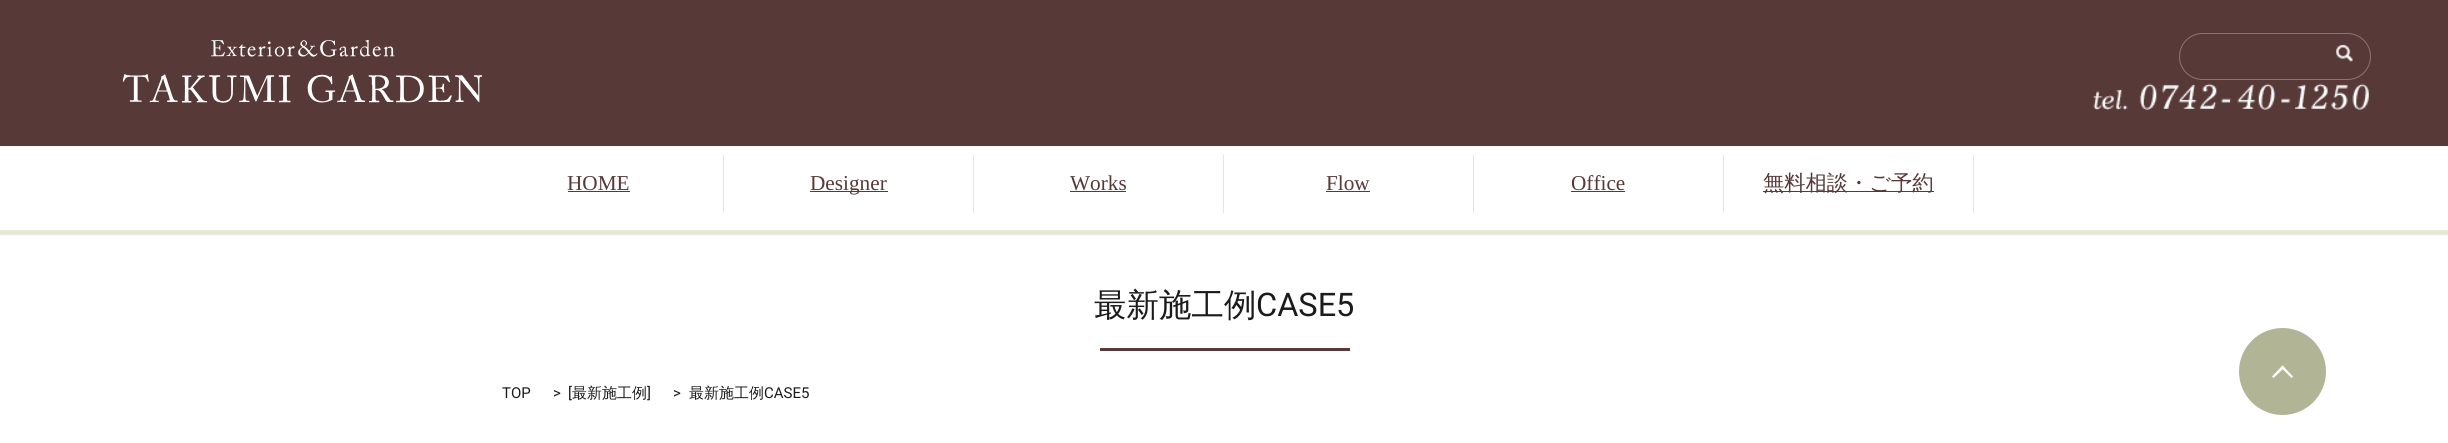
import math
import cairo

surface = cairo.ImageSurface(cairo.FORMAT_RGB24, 2448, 443)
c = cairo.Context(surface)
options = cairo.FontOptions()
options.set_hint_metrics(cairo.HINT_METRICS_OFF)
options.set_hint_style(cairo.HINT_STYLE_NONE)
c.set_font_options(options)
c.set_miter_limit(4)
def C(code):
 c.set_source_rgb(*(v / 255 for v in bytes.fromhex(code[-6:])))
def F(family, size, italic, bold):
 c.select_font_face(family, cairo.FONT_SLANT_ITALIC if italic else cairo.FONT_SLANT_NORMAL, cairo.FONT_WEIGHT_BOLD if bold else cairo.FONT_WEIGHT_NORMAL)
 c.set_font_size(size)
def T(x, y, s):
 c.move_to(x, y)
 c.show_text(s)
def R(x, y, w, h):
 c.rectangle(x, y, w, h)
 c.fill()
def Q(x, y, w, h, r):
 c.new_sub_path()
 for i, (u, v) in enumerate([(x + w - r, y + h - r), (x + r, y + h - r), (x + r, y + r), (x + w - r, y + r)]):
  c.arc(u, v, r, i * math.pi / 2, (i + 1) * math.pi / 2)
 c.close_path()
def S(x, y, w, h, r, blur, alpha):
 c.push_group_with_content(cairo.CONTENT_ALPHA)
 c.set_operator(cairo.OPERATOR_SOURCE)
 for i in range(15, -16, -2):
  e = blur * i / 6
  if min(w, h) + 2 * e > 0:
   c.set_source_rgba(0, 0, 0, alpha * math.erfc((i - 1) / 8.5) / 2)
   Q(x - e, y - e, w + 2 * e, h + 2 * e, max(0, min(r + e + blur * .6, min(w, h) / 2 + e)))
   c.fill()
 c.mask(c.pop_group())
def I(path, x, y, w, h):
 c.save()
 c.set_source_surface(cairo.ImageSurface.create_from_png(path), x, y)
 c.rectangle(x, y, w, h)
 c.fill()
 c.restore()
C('ffffff')
c.paint()
C('000000')
S(0,1,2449,234,0,.5,.1)
C('573938')
R(0,0,2448,146)
I('1.png',122,40,361,63)
C('ffffff')
R(0,146,2448,84)
C('e4e9cf')
R(0,230,2448,4)
Q(2179.5,33.5,191,46,23)
C('8a7574')
c.set_line_width(1)
c.stroke()
I('2.png',2336,44,17,18)
I('3.png',2093,83,276,27)
C('e4e9cf')
R(723,155,1,58)
F('Liberation Serif',21.25,0,0)
C('573938')
T(567,190,'HOME')
R(568,191,62,1)
C('e4e9cf')
R(973,155,1,58)
C('573938')
R(810,191,78,1)
T(810,190,'Designer')
C('e4e9cf')
R(1223,155,1,58)
C('573938')
T(1070,190,'Works')
R(1070,191,56,1)
C('e4e9cf')
R(1473,155,1,58)
C('573938')
T(1326,190,'Flow')
R(1326,191,44,1)
C('e4e9cf')
R(1723,155,1,58)
C('573938')
T(1571,190,'Office')
R(1571,191,54,1)
C('e4e9cf')
R(1973,155,1,58)
C('573938')
R(1763,191,171,1)
F('WenQuanYi Zen Hei Medium',21.25,0,0)
T(1763,190,'無料相談・ご予約')
F('WenQuanYi Zen Hei Medium',32.5,0,0)
C('1b1b1b')
T(1094,316,'最新施工例')
F('Roboto',32.5,0,0)
T(1256,316,'CASE5')
C('573938')
R(1100,348,250,3)
F('Roboto',15,0,0)
C('1b1b1b')
T(502,398,'TOP')
T(553,398,'>')
T(568,398,'[')
F('WenQuanYi Zen Hei Medium',15,0,0)
T(572,398,'最新施工例')
F('Roboto',15,0,0)
T(647,398,']')
T(673,398,'>')
F('WenQuanYi Zen Hei Medium',15,0,0)
T(689,398,'最新施工例')
F('Roboto',15,0,0)
T(764,398,'CASE5')
C('b1b596')
c.new_path()
c.arc(2282.5,371.5,43.5,0,2 * math.pi)
c.fill()
C('ffffff')
c.new_path()
c.move_to(2282.5,365.5)
c.line_to(2293,376.5)
c.line_to(2291.5,378)
c.line_to(2281,367.5)
c.close_path()
c.fill()
c.new_path()
c.move_to(2282.5,365.5)
c.line_to(2284.5,367.5)
c.line_to(2273.5,378)
c.line_to(2272,376.5)
c.close_path()
c.fill()
surface.write_to_png('o.png')
